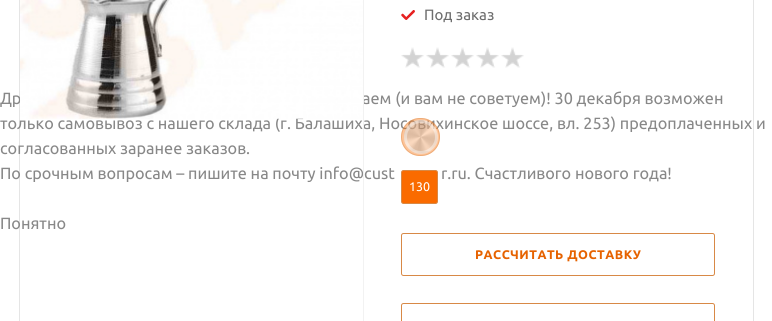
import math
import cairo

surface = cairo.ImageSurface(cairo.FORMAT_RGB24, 772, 321)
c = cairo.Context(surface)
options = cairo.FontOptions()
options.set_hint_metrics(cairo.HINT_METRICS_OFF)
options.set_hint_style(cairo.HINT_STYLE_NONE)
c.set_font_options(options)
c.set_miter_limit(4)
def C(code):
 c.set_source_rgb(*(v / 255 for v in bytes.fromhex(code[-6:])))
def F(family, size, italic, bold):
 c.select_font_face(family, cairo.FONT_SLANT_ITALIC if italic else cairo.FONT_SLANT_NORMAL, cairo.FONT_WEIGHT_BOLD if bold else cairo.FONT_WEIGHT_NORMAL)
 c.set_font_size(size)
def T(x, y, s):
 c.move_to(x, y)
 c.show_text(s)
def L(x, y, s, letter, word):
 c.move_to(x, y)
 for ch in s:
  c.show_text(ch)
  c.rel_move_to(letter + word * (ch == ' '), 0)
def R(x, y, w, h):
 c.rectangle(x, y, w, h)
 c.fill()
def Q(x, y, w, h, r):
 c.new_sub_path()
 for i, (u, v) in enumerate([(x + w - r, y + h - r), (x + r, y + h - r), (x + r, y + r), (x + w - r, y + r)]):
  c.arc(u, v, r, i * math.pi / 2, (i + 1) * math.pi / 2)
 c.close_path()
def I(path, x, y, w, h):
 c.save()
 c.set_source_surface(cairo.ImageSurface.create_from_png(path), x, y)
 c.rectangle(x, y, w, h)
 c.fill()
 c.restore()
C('ffffff')
c.paint()
c.rectangle(19.5,-.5,734,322)
C('e5e5e5')
c.set_line_width(1)
c.stroke()
F('Ubuntu',16.25,0,0)
C('888888')
T(0,104,'Др')
T(362,104,'аем (и вам не советуем)! 30 декабря возможен')
T(0,129,'только самовывоз с нашего склада (г. Балашиха, Носовихинское шоссе, вл. 253) предоплаченных и')
I('1.png',20,0,343,119)
T(0,179,'По срочным вопросам – пишите на почту info@cust')
C('f2f2f2')
R(363,0,1,209)
R(363,209,1,112)
I('2.png',401,10,14,10)
F('Ubuntu',15,0,0)
C('6d6d6d')
T(424,20,'Под заказ')
I('3.png',401,47,23,21)
I('3.png',426,47,23,21)
I('3.png',451,47,23,21)
I('3.png',476,47,23,21)
I('3.png',501,47,23,21)
c.set_source_rgba(0.98,0.42,0,0.4)
Q(401,118,39,38,19)
c.fill()
Q(401.5,118.5,38,37,18.5)
c.set_source_rgba(0.847,0.537,0.275,0.4)
c.stroke()
I('4.png',404,120,34,34)
c.arc(421,137,15.5,0,2 * math.pi)
c.set_source_rgba(1,1,1,0.4)
c.set_line_width(3)
c.stroke()
C('fa6b00')
Q(401.5,170.5,36,33,2)
c.fill_preserve()
C('d88946')
c.set_line_width(1)
c.stroke()
F('Ubuntu',12.5,0,0)
C('ffffff')
T(409,191,'130')
Q(401.5,233.5,313,42,2)
C('d88946')
c.stroke()
F('Ubuntu',12.5,0,1)
C('e66200')
L(475,259,'РАССЧИТАТЬ ДОСТАВКУ',.5,0)
Q(401.5,303.5,313,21,2)
C('d88946')
c.stroke()
F('Ubuntu',16.25,0,0)
C('888888')
T(0,154,'согласованных заранее заказов.')
T(441,179,'r.ru. Счастливого нового года!')
T(0,229,'Понятно')
surface.write_to_png('o.png')
